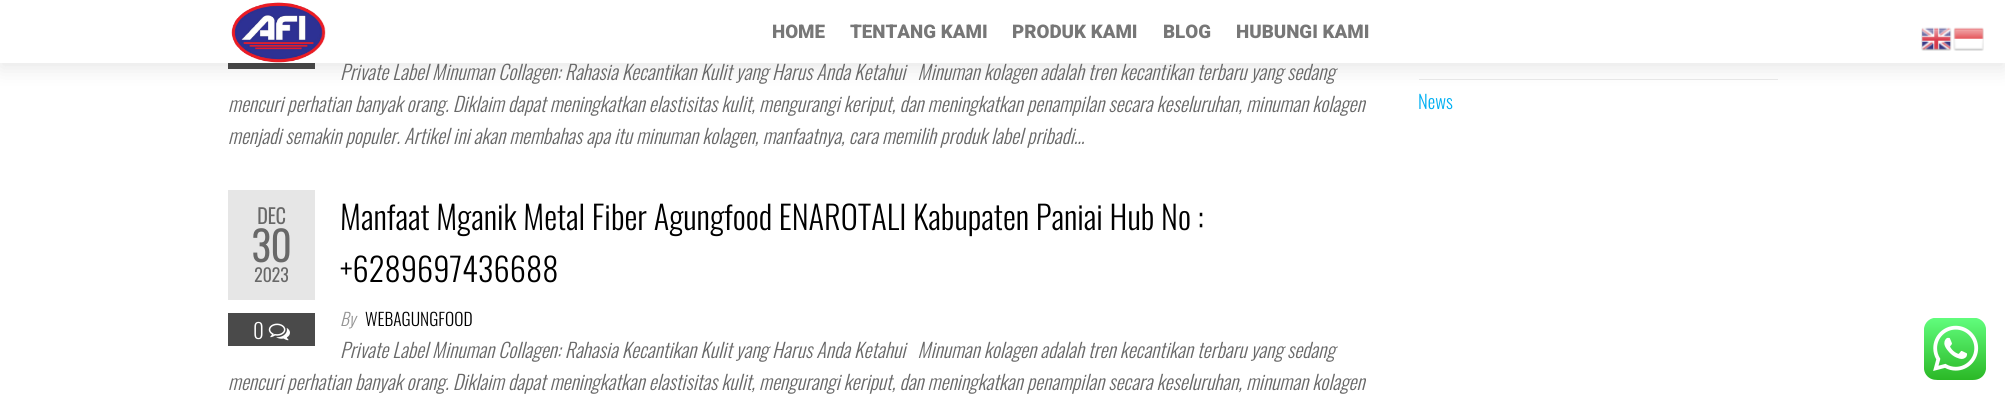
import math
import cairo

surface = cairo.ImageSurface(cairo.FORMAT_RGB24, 2005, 398)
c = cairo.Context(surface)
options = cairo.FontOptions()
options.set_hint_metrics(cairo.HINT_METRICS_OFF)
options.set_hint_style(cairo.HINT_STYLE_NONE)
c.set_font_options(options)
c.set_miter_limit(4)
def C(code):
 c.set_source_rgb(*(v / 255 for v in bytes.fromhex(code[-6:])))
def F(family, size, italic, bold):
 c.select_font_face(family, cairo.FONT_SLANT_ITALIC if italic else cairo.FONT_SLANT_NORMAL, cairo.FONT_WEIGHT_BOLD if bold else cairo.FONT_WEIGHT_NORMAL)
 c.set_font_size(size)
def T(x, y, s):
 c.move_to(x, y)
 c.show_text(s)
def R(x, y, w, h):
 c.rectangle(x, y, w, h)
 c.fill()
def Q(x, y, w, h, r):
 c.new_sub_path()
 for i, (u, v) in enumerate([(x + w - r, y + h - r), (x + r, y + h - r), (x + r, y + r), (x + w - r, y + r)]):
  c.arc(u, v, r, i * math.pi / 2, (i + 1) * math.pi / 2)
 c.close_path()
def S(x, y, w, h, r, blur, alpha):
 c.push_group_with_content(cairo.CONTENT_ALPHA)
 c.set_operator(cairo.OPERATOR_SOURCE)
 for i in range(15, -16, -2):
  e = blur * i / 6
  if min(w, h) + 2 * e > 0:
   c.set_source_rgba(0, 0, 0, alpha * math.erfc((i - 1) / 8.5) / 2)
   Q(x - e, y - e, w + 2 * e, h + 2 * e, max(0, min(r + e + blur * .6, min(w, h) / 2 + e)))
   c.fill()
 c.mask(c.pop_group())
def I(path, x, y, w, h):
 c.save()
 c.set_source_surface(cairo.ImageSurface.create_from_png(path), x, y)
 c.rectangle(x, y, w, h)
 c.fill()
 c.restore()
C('ffffff')
c.paint()
C('4a4a4a')
R(228,63,87,6)
C('ebebeb')
R(1419,79,359,1)
C('000000')
S(0,5,2005,63,0,10,.1)
C('ffffff')
R(0,0,2005,63)
I('1.png',231,2,95,61)
F('Roboto Black',18.75,0,0)
C('777777')
T(772,38,'HOME')
T(850,38,'TENTANG KAMI')
T(1012,38,'PRODUK KAMI')
T(1163,38,'BLOG')
T(1236,38,'HUBUNGI KAMI')
F('Oswald Light',20,1,0)
C('686868')
T(340,80,'Private Label Minuman Collagen: Rahasia Kecantikan Kulit yang Harus Anda Ketahui   Minuman kolagen adalah tren kecantikan terbaru yang sedang')
T(228,112,'mencuri perhatian banyak orang. Diklaim dapat meningkatkan elastisitas kulit, mengurangi keriput, dan meningkatkan penampilan secara keseluruhan, minuman kolagen')
T(228,144,'menjadi semakin populer. Artikel ini akan membahas apa itu minuman kolagen, manfaatnya, cara memilih produk label pribadi…')
C('e6e6e6')
R(228,190,87,110)
F('Oswald',20,0,1)
C('686868')
T(257,224,'DEC')
F('Oswald',40,0,1)
T(251,262,'30')
F('Oswald',17.5,0,1)
T(254,282,'2023')
C('4a4a4a')
R(228,313,87,33)
F('Oswald Light',21,0,0)
C('ffffff')
T(253,339,'0')
I('2.png',268,323,22,18)
F('Oswald Light',32.5,0,0)
C('000000')
T(340,230,'Manfaat Mganik Metal Fiber Agungfood ENAROTALI Kabupaten Paniai Hub No :')
T(340,282,'+6289697436688')
F('Oswald Light',17.5,1,0)
C('959595')
T(340,326,'By')
F('Oswald Light',17.5,0,0)
C('000000')
T(365,326,'WEBAGUNGFOOD')
F('Oswald Light',20,1,0)
C('686868')
T(340,358,'Private Label Minuman Collagen: Rahasia Kecantikan Kulit yang Harus Anda Ketahui   Minuman kolagen adalah tren kecantikan terbaru yang sedang')
T(228,390,'mencuri perhatian banyak orang. Diklaim dapat meningkatkan elastisitas kulit, mengurangi keriput, dan meningkatkan penampilan secara keseluruhan, minuman kolagen')
F('Oswald Light',18.75,0,0)
C('00aff2')
T(1418,109,'News')
I('3.png',1921,27,31,24)
I('4.png',1953,27,31,24)
I('5.png',1924,318,62,62)
surface.write_to_png('o.png')
